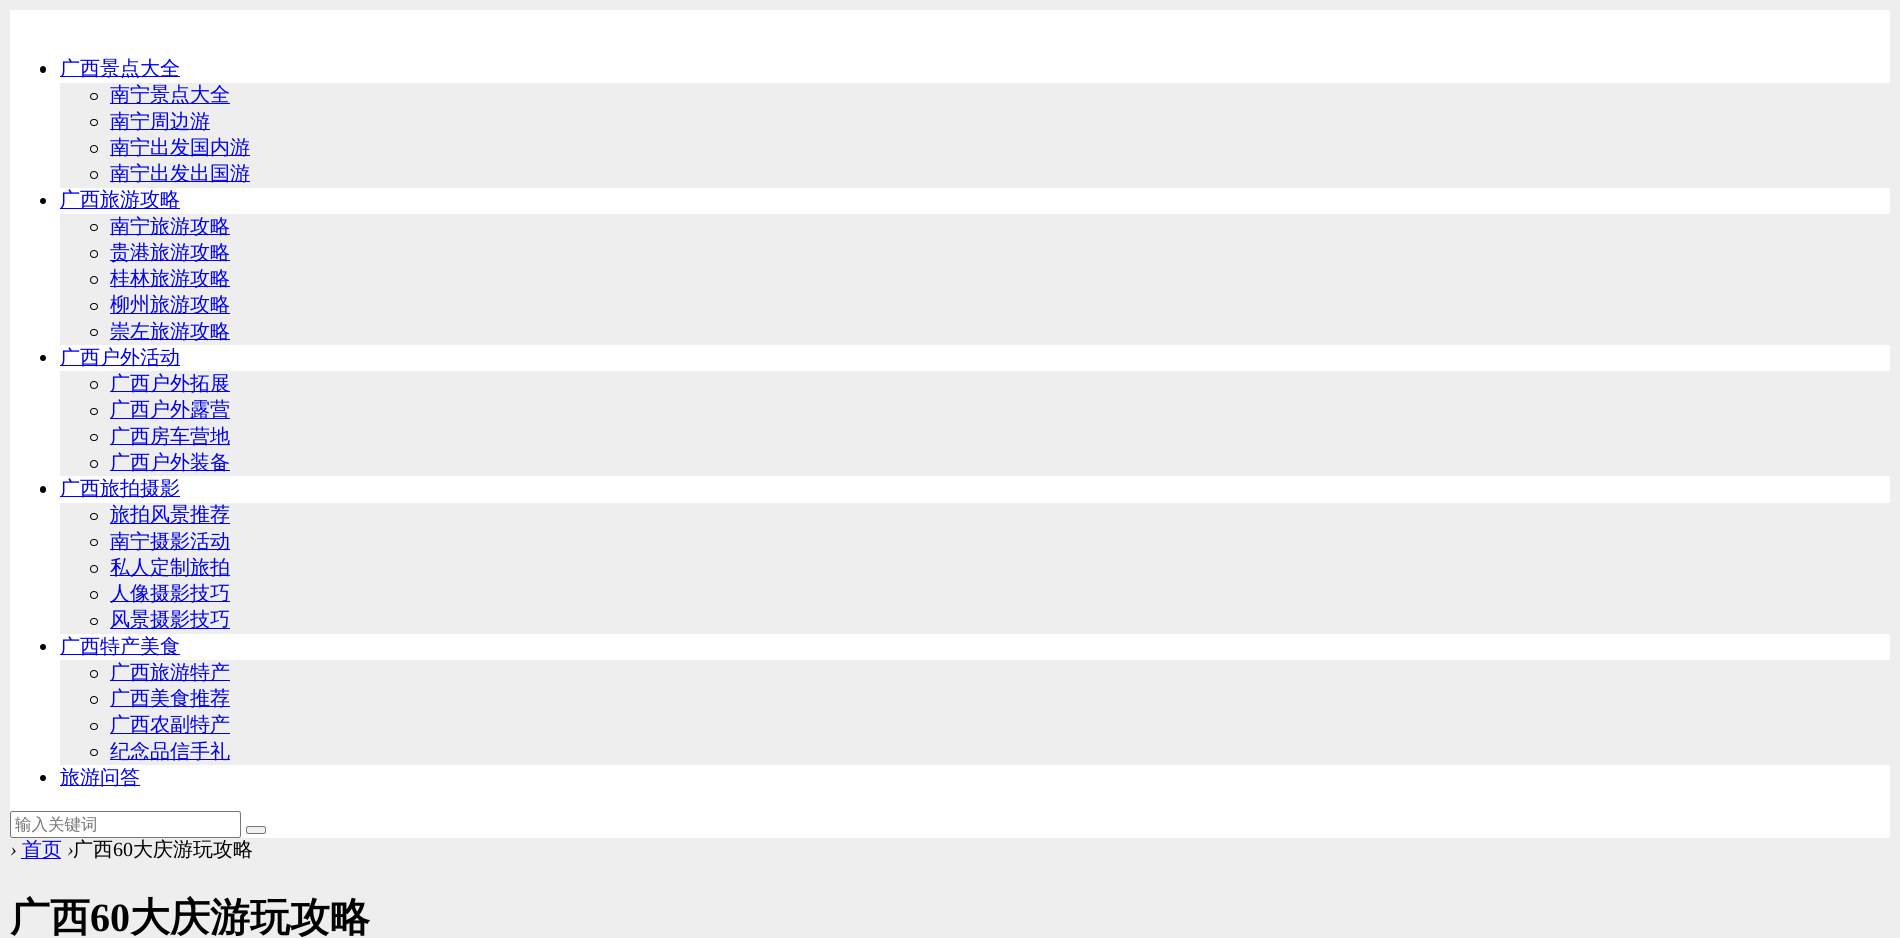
import math
import cairo

surface = cairo.ImageSurface(cairo.FORMAT_RGB24, 1900, 938)
c = cairo.Context(surface)
options = cairo.FontOptions()
options.set_hint_metrics(cairo.HINT_METRICS_OFF)
options.set_hint_style(cairo.HINT_STYLE_NONE)
c.set_font_options(options)
c.set_miter_limit(4)
def C(code):
 c.set_source_rgb(*(v / 255 for v in bytes.fromhex(code[-6:])))
def F(family, size, italic, bold):
 c.select_font_face(family, cairo.FONT_SLANT_ITALIC if italic else cairo.FONT_SLANT_NORMAL, cairo.FONT_WEIGHT_BOLD if bold else cairo.FONT_WEIGHT_NORMAL)
 c.set_font_size(size)
def T(x, y, s):
 c.move_to(x, y)
 c.show_text(s)
def R(x, y, w, h):
 c.rectangle(x, y, w, h)
 c.fill()
def Q(x, y, w, h, r):
 c.new_sub_path()
 for i, (u, v) in enumerate([(x + w - r, y + h - r), (x + r, y + h - r), (x + r, y + r), (x + w - r, y + r)]):
  c.arc(u, v, r, i * math.pi / 2, (i + 1) * math.pi / 2)
 c.close_path()
C('eeeeee')
c.paint()
C('ffffff')
R(10,10,1880,828)
C('000000')
Q(40,66,6,7,3)
c.fill()
C('0000ee')
R(60,76,120,1)
F('WenQuanYi Zen Hei Medium',20,0,0)
T(60,75,'广西景点大全')
C('eeeeee')
R(60,83,1830,105)
Q(90.5,93.5,7,6,3)
C('000000')
c.set_line_width(1)
c.stroke()
C('0000ee')
R(110,103,120,1)
T(110,101,'南宁景点大全')
Q(90.5,119.5,7,6,3)
C('000000')
c.stroke()
C('0000ee')
R(110,129,100,1)
T(110,128,'南宁周边游')
c.new_path()
c.arc(94,149,3.5,0,2 * math.pi)
C('000000')
c.stroke()
C('0000ee')
R(110,155,140,1)
T(110,154,'南宁出发国内游')
c.new_path()
c.arc(94,175,3.5,0,2 * math.pi)
C('000000')
c.stroke()
C('0000ee')
R(110,181,140,1)
T(110,180,'南宁出发出国游')
C('000000')
c.new_path()
c.arc(43,201,3,0,2 * math.pi)
c.fill()
C('0000ee')
R(60,208,120,1)
T(60,206,'广西旅游攻略')
C('eeeeee')
R(60,214,1830,131)
Q(90.5,224.5,7,6,3)
C('000000')
c.stroke()
C('0000ee')
R(110,234,120,1)
T(110,233,'南宁旅游攻略')
c.new_path()
c.arc(94,254,3.5,0,2 * math.pi)
C('000000')
c.stroke()
C('0000ee')
R(110,260,120,1)
T(110,259,'贵港旅游攻略')
c.new_path()
c.arc(94,280,3.5,0,2 * math.pi)
C('000000')
c.stroke()
C('0000ee')
R(110,286,120,1)
T(110,285,'桂林旅游攻略')
Q(90.5,303.5,7,6,3)
C('000000')
c.stroke()
C('0000ee')
R(110,313,120,1)
T(110,311,'柳州旅游攻略')
Q(90.5,329.5,7,6,3)
C('000000')
c.stroke()
C('0000ee')
R(110,339,120,1)
T(110,338,'崇左旅游攻略')
C('000000')
c.new_path()
c.arc(43,358,3,0,2 * math.pi)
c.fill()
C('0000ee')
R(60,365,120,1)
T(60,364,'广西户外活动')
C('eeeeee')
R(60,371,1830,105)
c.new_path()
c.arc(94,385,3.5,0,2 * math.pi)
C('000000')
c.stroke()
C('0000ee')
R(110,391,120,1)
T(110,390,'广西户外拓展')
Q(90.5,408.5,7,6,3)
C('000000')
c.stroke()
C('0000ee')
R(110,418,120,1)
T(110,416,'广西户外露营')
Q(90.5,434.5,7,6,3)
C('000000')
c.stroke()
C('0000ee')
R(110,444,120,1)
T(110,443,'广西房车营地')
c.new_path()
c.arc(94,464,3.5,0,2 * math.pi)
C('000000')
c.stroke()
C('0000ee')
R(110,470,120,1)
T(110,469,'广西户外装备')
C('000000')
Q(40,486,6,7,3)
c.fill()
C('0000ee')
R(60,496,120,1)
T(60,495,'广西旅拍摄影')
C('eeeeee')
R(60,503,1830,131)
Q(90.5,513.5,7,6,3)
C('000000')
c.stroke()
C('0000ee')
R(110,523,120,1)
T(110,521,'旅拍风景推荐')
Q(90.5,539.5,7,6,3)
C('000000')
c.stroke()
C('0000ee')
R(110,549,120,1)
T(110,548,'南宁摄影活动')
c.new_path()
c.arc(94,569,3.5,0,2 * math.pi)
C('000000')
c.stroke()
C('0000ee')
R(110,575,120,1)
T(110,574,'私人定制旅拍')
c.new_path()
c.arc(94,595,3.5,0,2 * math.pi)
C('000000')
c.stroke()
C('0000ee')
R(110,601,120,1)
T(110,600,'人像摄影技巧')
Q(90.5,618.5,7,6,3)
C('000000')
c.stroke()
C('0000ee')
R(110,628,120,1)
T(110,626,'风景摄影技巧')
C('000000')
c.new_path()
c.arc(43,647,3,0,2 * math.pi)
c.fill()
C('0000ee')
R(60,654,120,1)
T(60,653,'广西特产美食')
C('eeeeee')
R(60,660,1830,105)
c.new_path()
c.arc(94,674,3.5,0,2 * math.pi)
C('000000')
c.stroke()
C('0000ee')
R(110,680,120,1)
T(110,679,'广西旅游特产')
c.new_path()
c.arc(94,700,3.5,0,2 * math.pi)
C('000000')
c.stroke()
C('0000ee')
R(110,706,120,1)
T(110,705,'广西美食推荐')
Q(90.5,723.5,7,6,3)
C('000000')
c.stroke()
C('0000ee')
R(110,733,120,1)
T(110,731,'广西农副特产')
Q(90.5,749.5,7,6,3)
C('000000')
c.stroke()
C('0000ee')
R(110,759,120,1)
T(110,758,'纪念品信手礼')
C('000000')
c.new_path()
c.arc(43,778,3,0,2 * math.pi)
c.fill()
C('0000ee')
R(60,785,80,1)
T(60,784,'旅游问答')
Q(10.5,811.5,230,26,2)
C('767676')
c.stroke()
F('WenQuanYi Zen Hei Medium',16.5,0,0)
C('757575')
T(15,830,'输入关键词')
C('efefef')
Q(246.5,826.5,19,7,2)
c.fill_preserve()
C('767676')
c.stroke()
F('Liberation Serif',20,1,0)
C('000000')
T(10,856,'›')
C('0000ee')
R(21,858,40,1)
F('WenQuanYi Zen Hei Medium',20,0,0)
T(22,856,'首页')
F('Liberation Serif',20,1,0)
C('000000')
T(67,856,'›')
F('WenQuanYi Zen Hei Medium',20,0,0)
T(73,856,'广西')
F('Liberation Serif',20,0,0)
T(113,856,'60')
F('WenQuanYi Zen Hei Medium',20,0,0)
T(133,856,'大庆游玩攻略')
F('WenQuanYi Zen Hei',40,0,1)
T(10,931,'广西')
F('Liberation Serif',40,0,1)
T(90,931,'60')
F('WenQuanYi Zen Hei',40,0,1)
T(130,931,'大庆游玩攻略')
surface.write_to_png('o.png')
